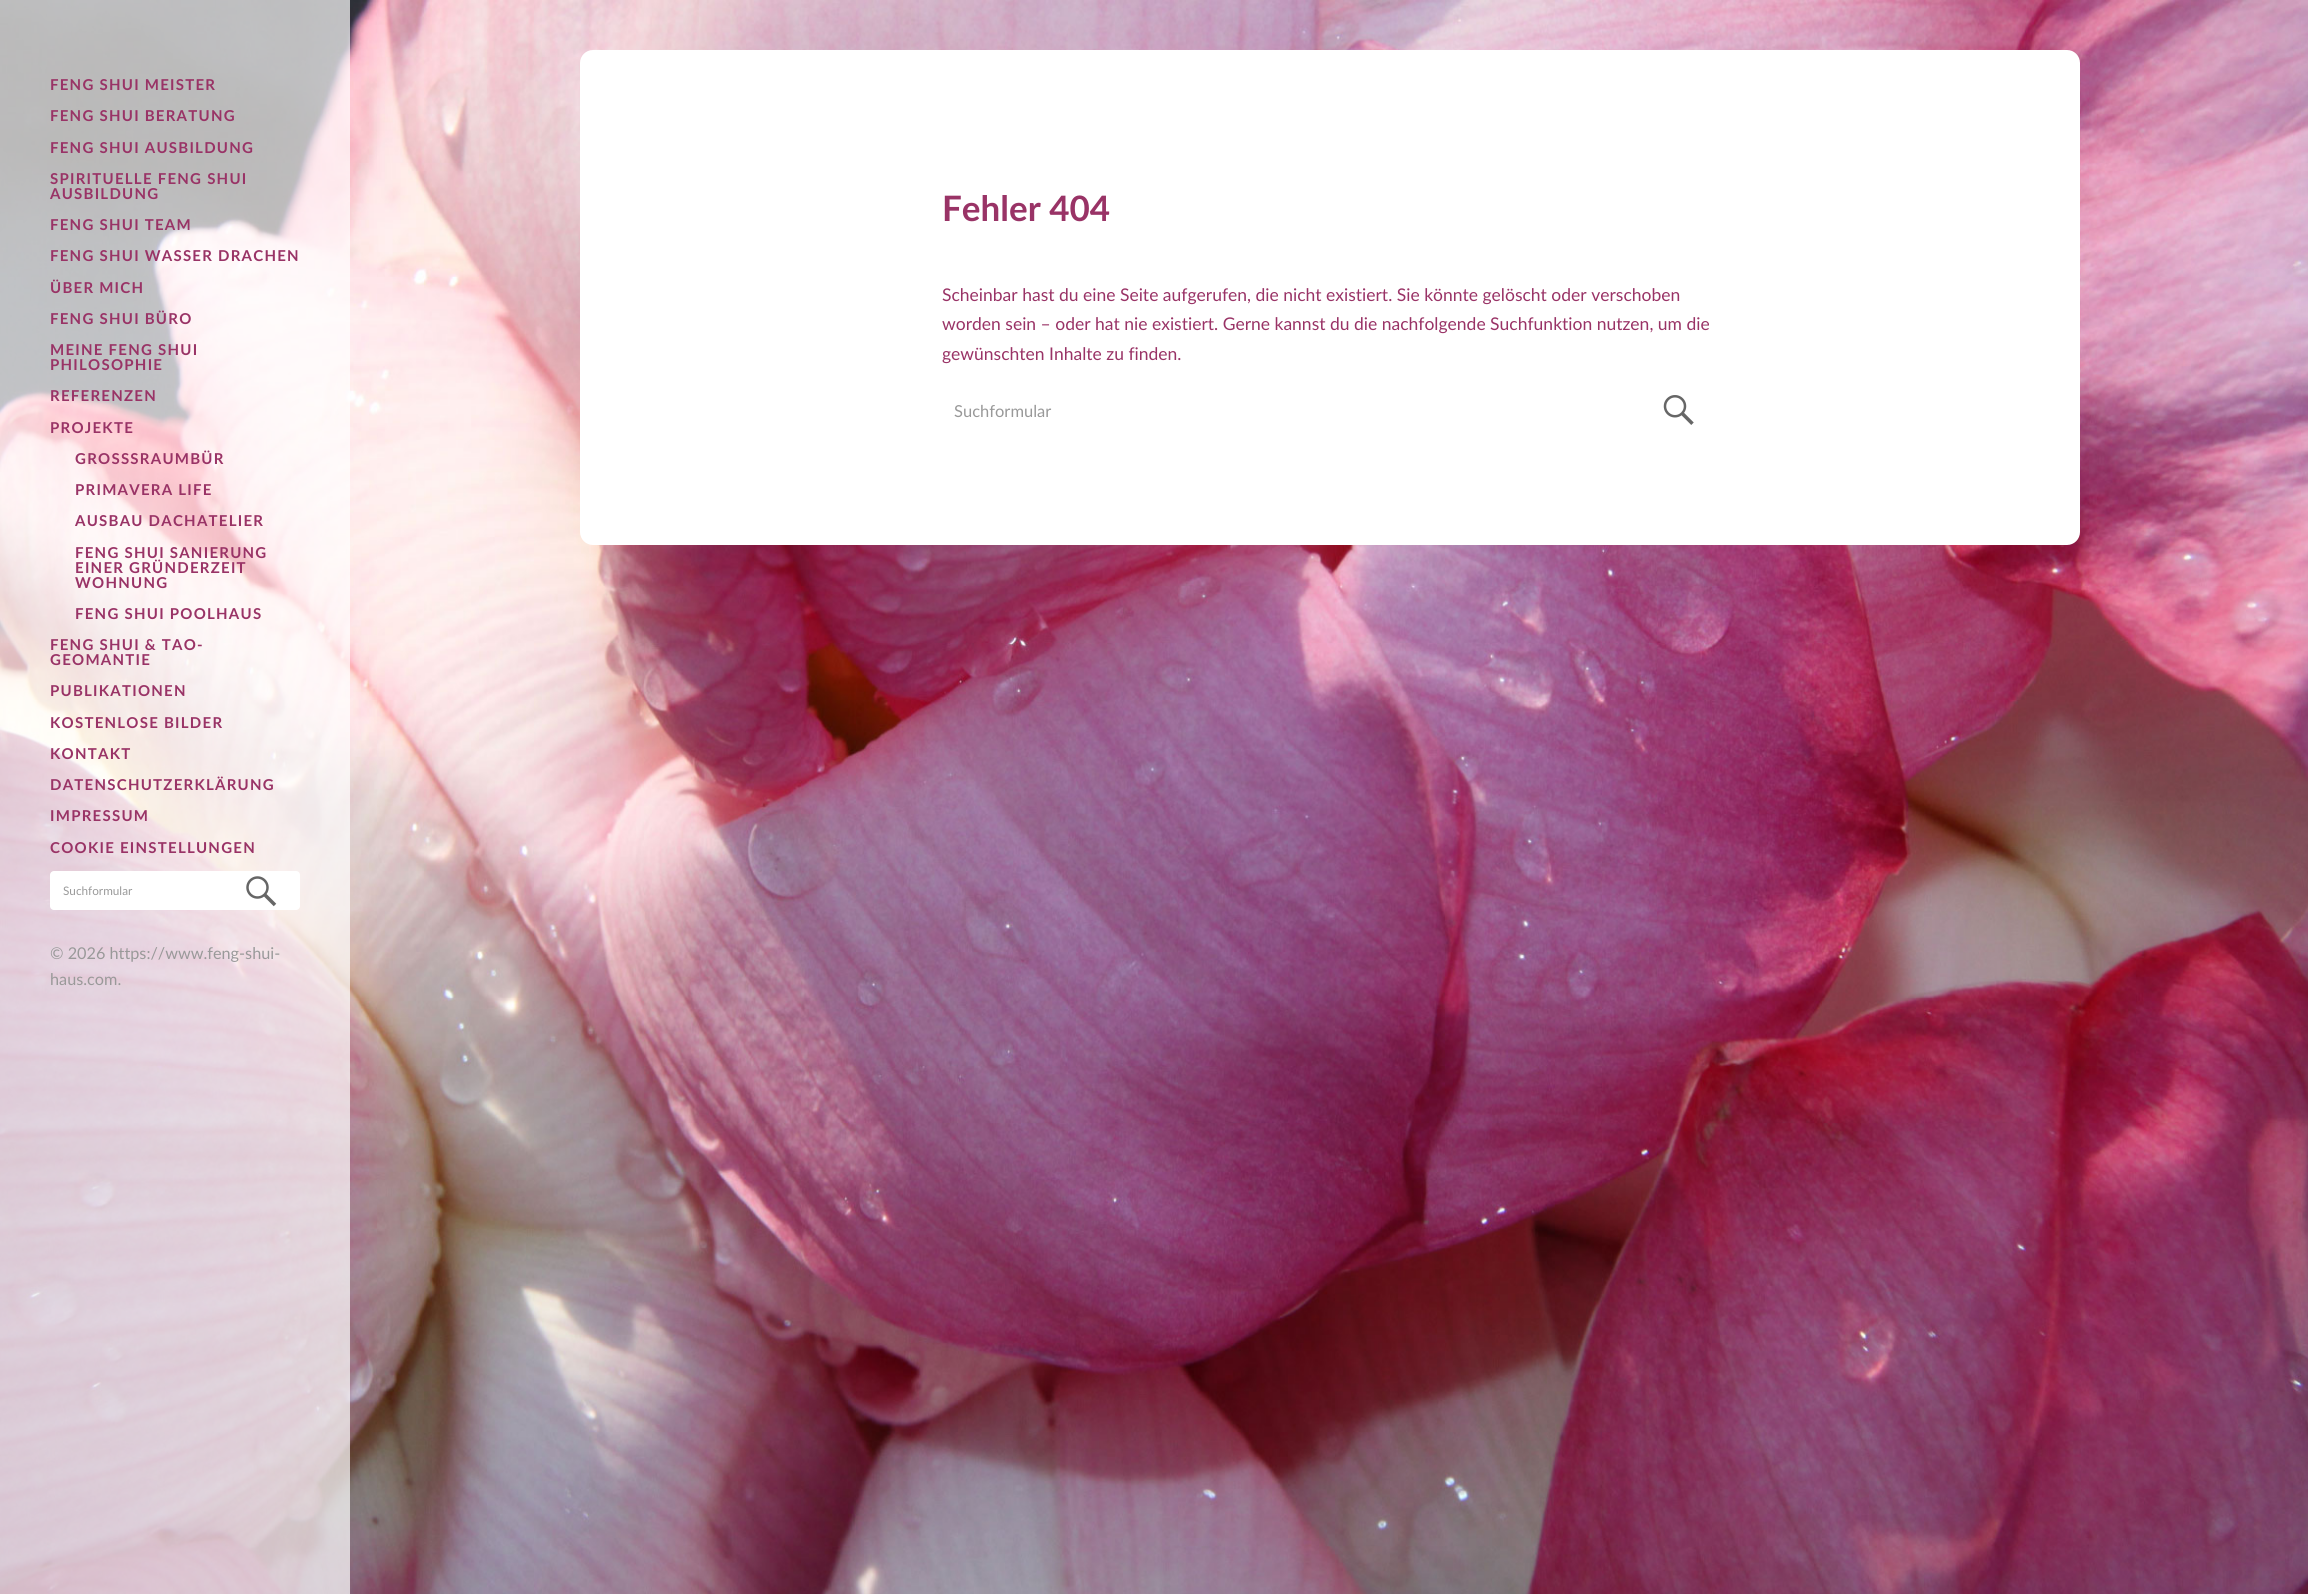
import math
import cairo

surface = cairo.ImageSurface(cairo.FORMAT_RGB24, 2308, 1594)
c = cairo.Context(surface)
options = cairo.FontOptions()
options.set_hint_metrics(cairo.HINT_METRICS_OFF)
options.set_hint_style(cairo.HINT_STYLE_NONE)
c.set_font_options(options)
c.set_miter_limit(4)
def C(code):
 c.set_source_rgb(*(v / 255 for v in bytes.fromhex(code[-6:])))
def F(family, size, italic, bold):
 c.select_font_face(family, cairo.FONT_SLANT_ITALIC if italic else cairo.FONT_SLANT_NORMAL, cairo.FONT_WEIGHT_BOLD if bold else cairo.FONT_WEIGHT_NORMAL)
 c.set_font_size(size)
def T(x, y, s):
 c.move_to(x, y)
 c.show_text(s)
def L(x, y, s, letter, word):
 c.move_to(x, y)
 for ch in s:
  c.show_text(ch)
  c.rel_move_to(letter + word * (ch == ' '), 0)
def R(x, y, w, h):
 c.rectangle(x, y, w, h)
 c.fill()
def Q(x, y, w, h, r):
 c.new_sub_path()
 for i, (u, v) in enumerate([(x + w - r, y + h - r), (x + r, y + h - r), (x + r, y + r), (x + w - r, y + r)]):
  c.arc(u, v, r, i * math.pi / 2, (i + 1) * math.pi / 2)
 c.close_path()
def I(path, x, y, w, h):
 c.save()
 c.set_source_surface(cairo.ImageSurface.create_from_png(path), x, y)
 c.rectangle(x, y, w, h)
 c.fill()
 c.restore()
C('ffffff')
c.paint()
I('1.png',0,0,2308,1594)
c.set_source_rgba(1,1,1,0.7)
R(0,0,350,1594)
F('Lato',15,0,1)
C('993366')
L(50,90,'FENG SHUI MEISTER',1.25,0)
L(50,121,'FENG SHUI BERATUNG',1.25,0)
L(50,153,'FENG SHUI AUSBILDUNG',1.25,0)
L(50,184,'SPIRITUELLE FENG SHUI',1.25,0)
L(50,199,'AUSBILDUNG',1.25,0)
L(50,230,'FENG SHUI TEAM',1.25,0)
L(50,261,'FENG SHUI WASSER DRACHEN',1.25,0)
L(50,293,'ÜBER MICH',1.25,0)
L(50,324,'FENG SHUI BÜRO',1.25,0)
L(50,355,'MEINE FENG SHUI',1.25,0)
L(50,370,'PHILOSOPHIE',1.25,0)
L(50,401,'REFERENZEN',1.25,0)
L(50,433,'PROJEKTE',1.25,0)
L(75,464,'GROSSSRAUMBÜR',1.25,0)
L(75,495,'PRIMAVERA LIFE',1.25,0)
L(75,526,'AUSBAU DACHATELIER',1.25,0)
L(75,558,'FENG SHUI SANIERUNG',1.25,0)
L(75,573,'EINER GRÜNDERZEIT',1.25,0)
L(75,588,'WOHNUNG',1.25,0)
L(75,619,'FENG SHUI POOLHAUS',1.25,0)
L(50,650,'FENG SHUI & TAO-',1.25,0)
L(50,665,'GEOMANTIE',1.25,0)
L(50,696,'PUBLIKATIONEN',1.25,0)
L(50,728,'KOSTENLOSE BILDER',1.25,0)
L(50,759,'KONTAKT',1.25,0)
L(50,790,'DATENSCHUTZERKLÄRUNG',1.25,0)
L(50,821,'IMPRESSUM',1.25,0)
L(50,853,'COOKIE EINSTELLUNGEN',1.25,0)
C('ffffff')
Q(50,871,250,39,4)
c.fill()
F('Lato',11.75,0,0)
C('999999')
T(63,895,'Suchformular')
I('2.png',246,876,31,31)
F('Lato',16.25,0,0)
T(50,959,'© 2026 https://www.feng-shui-')
T(50,985,'haus.com.')
C('ffffff')
Q(580,50,1500,495,13)
c.fill()
F('Lato',35,0,1)
C('993366')
T(942,221,'Fehler 404')
F('Lato',17.5,0,0)
T(942,301,'Scheinbar hast du eine Seite aufgerufen, die nicht existiert. Sie könnte gelöscht oder verschoben')
T(942,330,'worden sein – oder hat nie existiert. Gerne kannst du die nachfolgende Suchfunktion nutzen, um die')
T(942,360,'gewünschten Inhalte zu finden.')
F('Lato',16.5,0,0)
C('999999')
T(954,417,'Suchformular')
I('3.png',1663,395,31,30)
surface.write_to_png('o.png')
